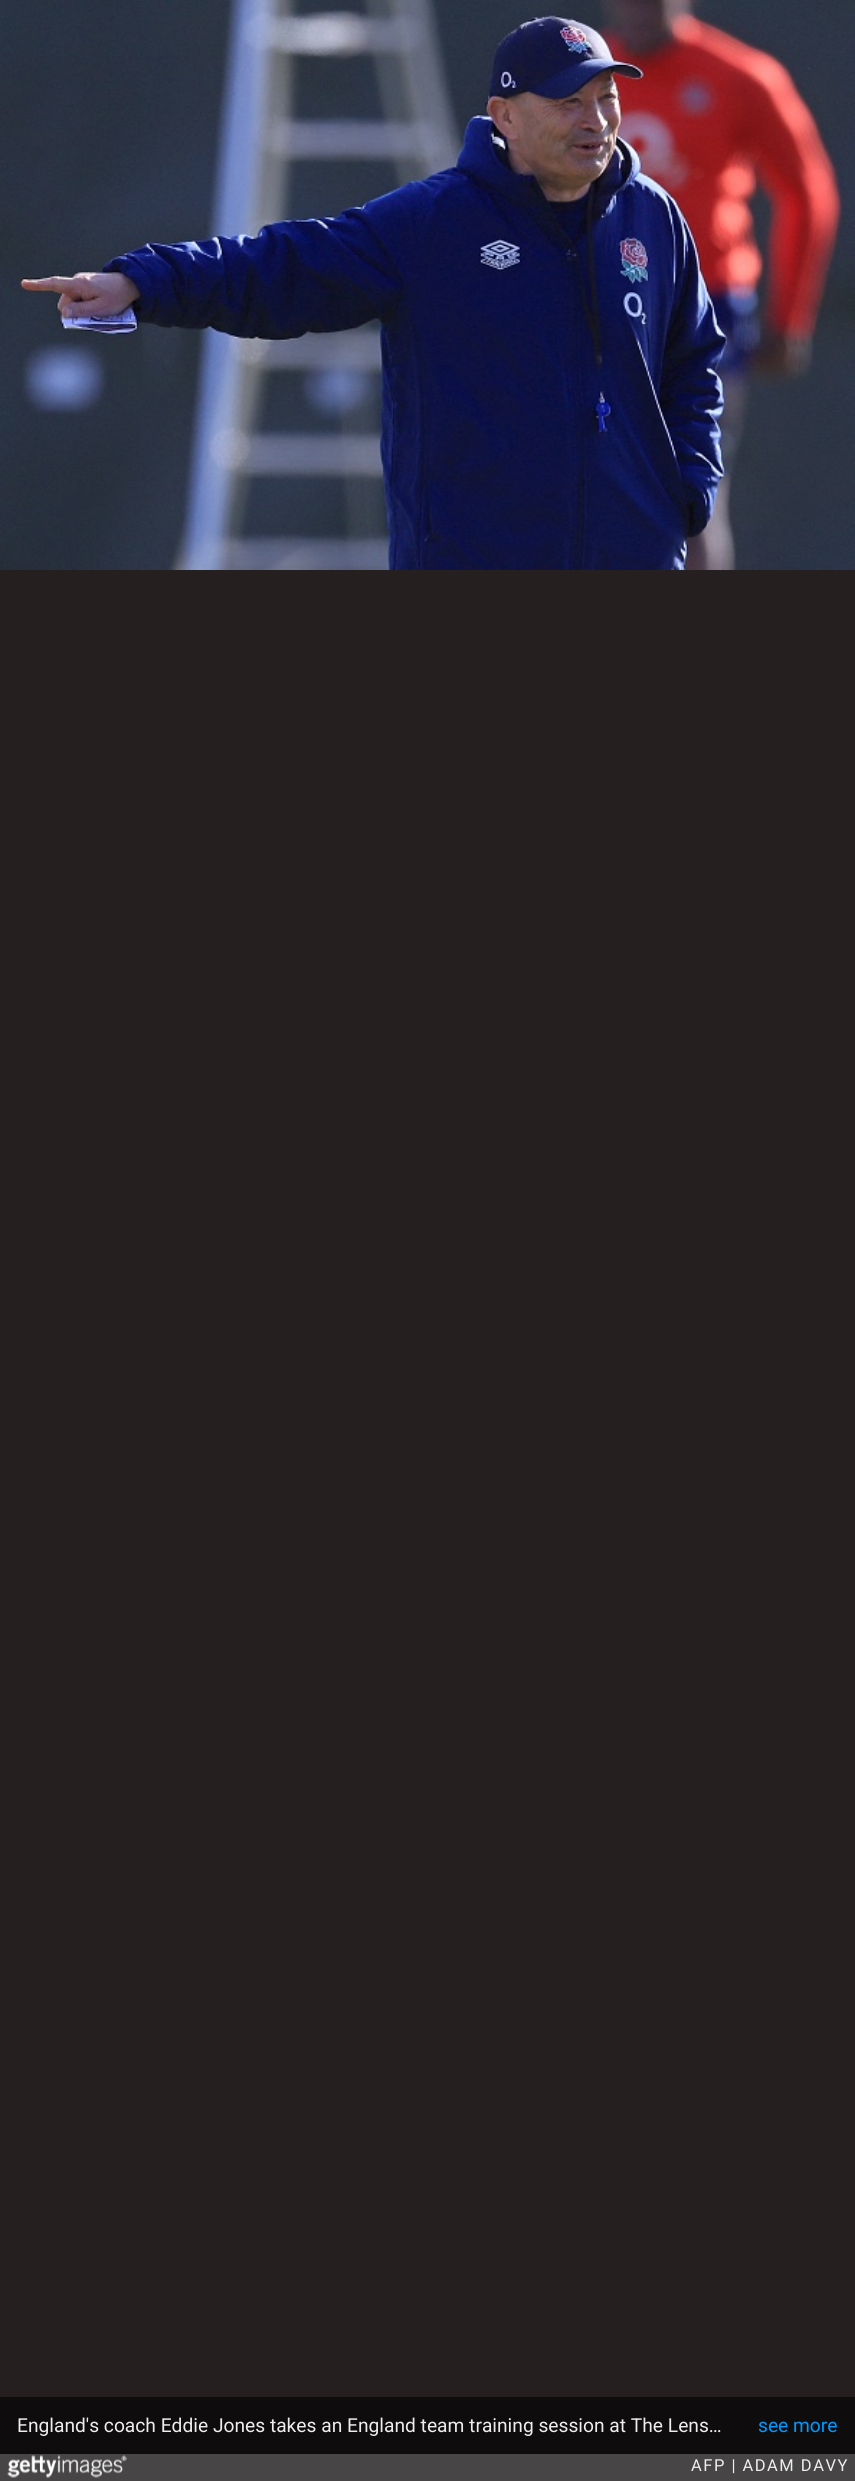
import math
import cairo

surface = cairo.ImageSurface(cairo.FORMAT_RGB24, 855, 2481)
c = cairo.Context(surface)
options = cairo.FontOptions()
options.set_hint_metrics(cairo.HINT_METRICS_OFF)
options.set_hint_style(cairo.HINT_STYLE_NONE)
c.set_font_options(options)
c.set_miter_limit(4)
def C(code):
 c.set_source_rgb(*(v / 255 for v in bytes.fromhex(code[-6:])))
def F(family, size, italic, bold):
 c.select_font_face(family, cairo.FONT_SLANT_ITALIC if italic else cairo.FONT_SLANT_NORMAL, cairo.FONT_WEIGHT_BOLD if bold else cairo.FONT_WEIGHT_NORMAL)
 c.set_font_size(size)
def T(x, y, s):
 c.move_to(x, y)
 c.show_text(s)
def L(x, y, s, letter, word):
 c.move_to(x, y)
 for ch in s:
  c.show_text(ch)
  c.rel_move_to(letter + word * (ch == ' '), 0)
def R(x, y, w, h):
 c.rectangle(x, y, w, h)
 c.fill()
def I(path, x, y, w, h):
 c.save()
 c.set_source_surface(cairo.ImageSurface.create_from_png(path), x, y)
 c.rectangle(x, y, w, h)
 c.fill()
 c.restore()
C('251f20')
c.paint()
I('1.png',0,0,855,570)
C('0f0c0d')
R(0,2397,855,57)
F('Roboto',19.2,0,0)
C('eeeeee')
T(17,2432,'England\'s coach Eddie Jones takes an England team training session at The Lens…')
C('0099ff')
T(758,2432,'see more')
C('474545')
R(0,2454,855,27)
I('2.png',7,2455,120,23)
F('Roboto',16.5,0,0)
C('eeeeee')
L(691,2471,'AFP | ADAM DAVY',1.5,0)
surface.write_to_png('o.png')
